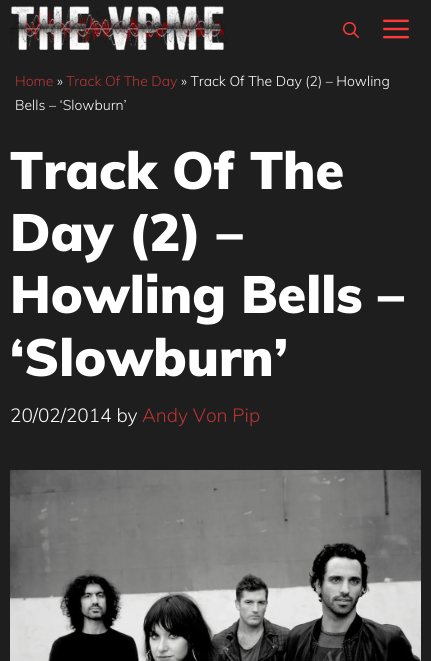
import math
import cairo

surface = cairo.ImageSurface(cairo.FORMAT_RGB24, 431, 661)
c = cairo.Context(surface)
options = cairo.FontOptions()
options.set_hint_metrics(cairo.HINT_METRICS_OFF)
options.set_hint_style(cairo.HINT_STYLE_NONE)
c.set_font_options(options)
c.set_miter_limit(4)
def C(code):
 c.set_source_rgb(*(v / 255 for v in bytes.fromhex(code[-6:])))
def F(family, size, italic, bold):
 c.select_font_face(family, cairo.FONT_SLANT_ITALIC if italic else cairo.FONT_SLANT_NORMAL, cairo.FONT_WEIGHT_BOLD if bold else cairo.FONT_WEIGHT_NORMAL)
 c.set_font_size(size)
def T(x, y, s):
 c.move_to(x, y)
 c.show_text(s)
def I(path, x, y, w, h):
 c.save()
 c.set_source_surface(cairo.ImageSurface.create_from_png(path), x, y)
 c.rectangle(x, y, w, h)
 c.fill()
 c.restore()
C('1e1e1e')
c.paint()
I('1.png',10,6,217,45)
I('2.png',343,22,16,16)
I('3.png',383,19,26,20)
F('Muli Light',14,0,0)
C('b93434')
T(15,86,'Home')
C('ffffff')
T(57,86,'»')
C('b93434')
T(66,86,'Track Of The Day')
C('ffffff')
T(181,86,'» Track Of The Day (2) – Howling')
T(15,110,'Bells – ‘Slowburn’')
F('Muli Black',52,0,0)
T(10,189,'Track Of The')
T(10,251,'Day (2) –')
T(10,313,'Howling Bells –')
T(10,376,'‘Slowburn’')
F('Muli Light',19,0,0)
T(10,422,'20/02/2014 by')
C('b93434')
T(142,422,'Andy Von Pip')
I('4.png',10,470,411,191)
surface.write_to_png('o.png')
